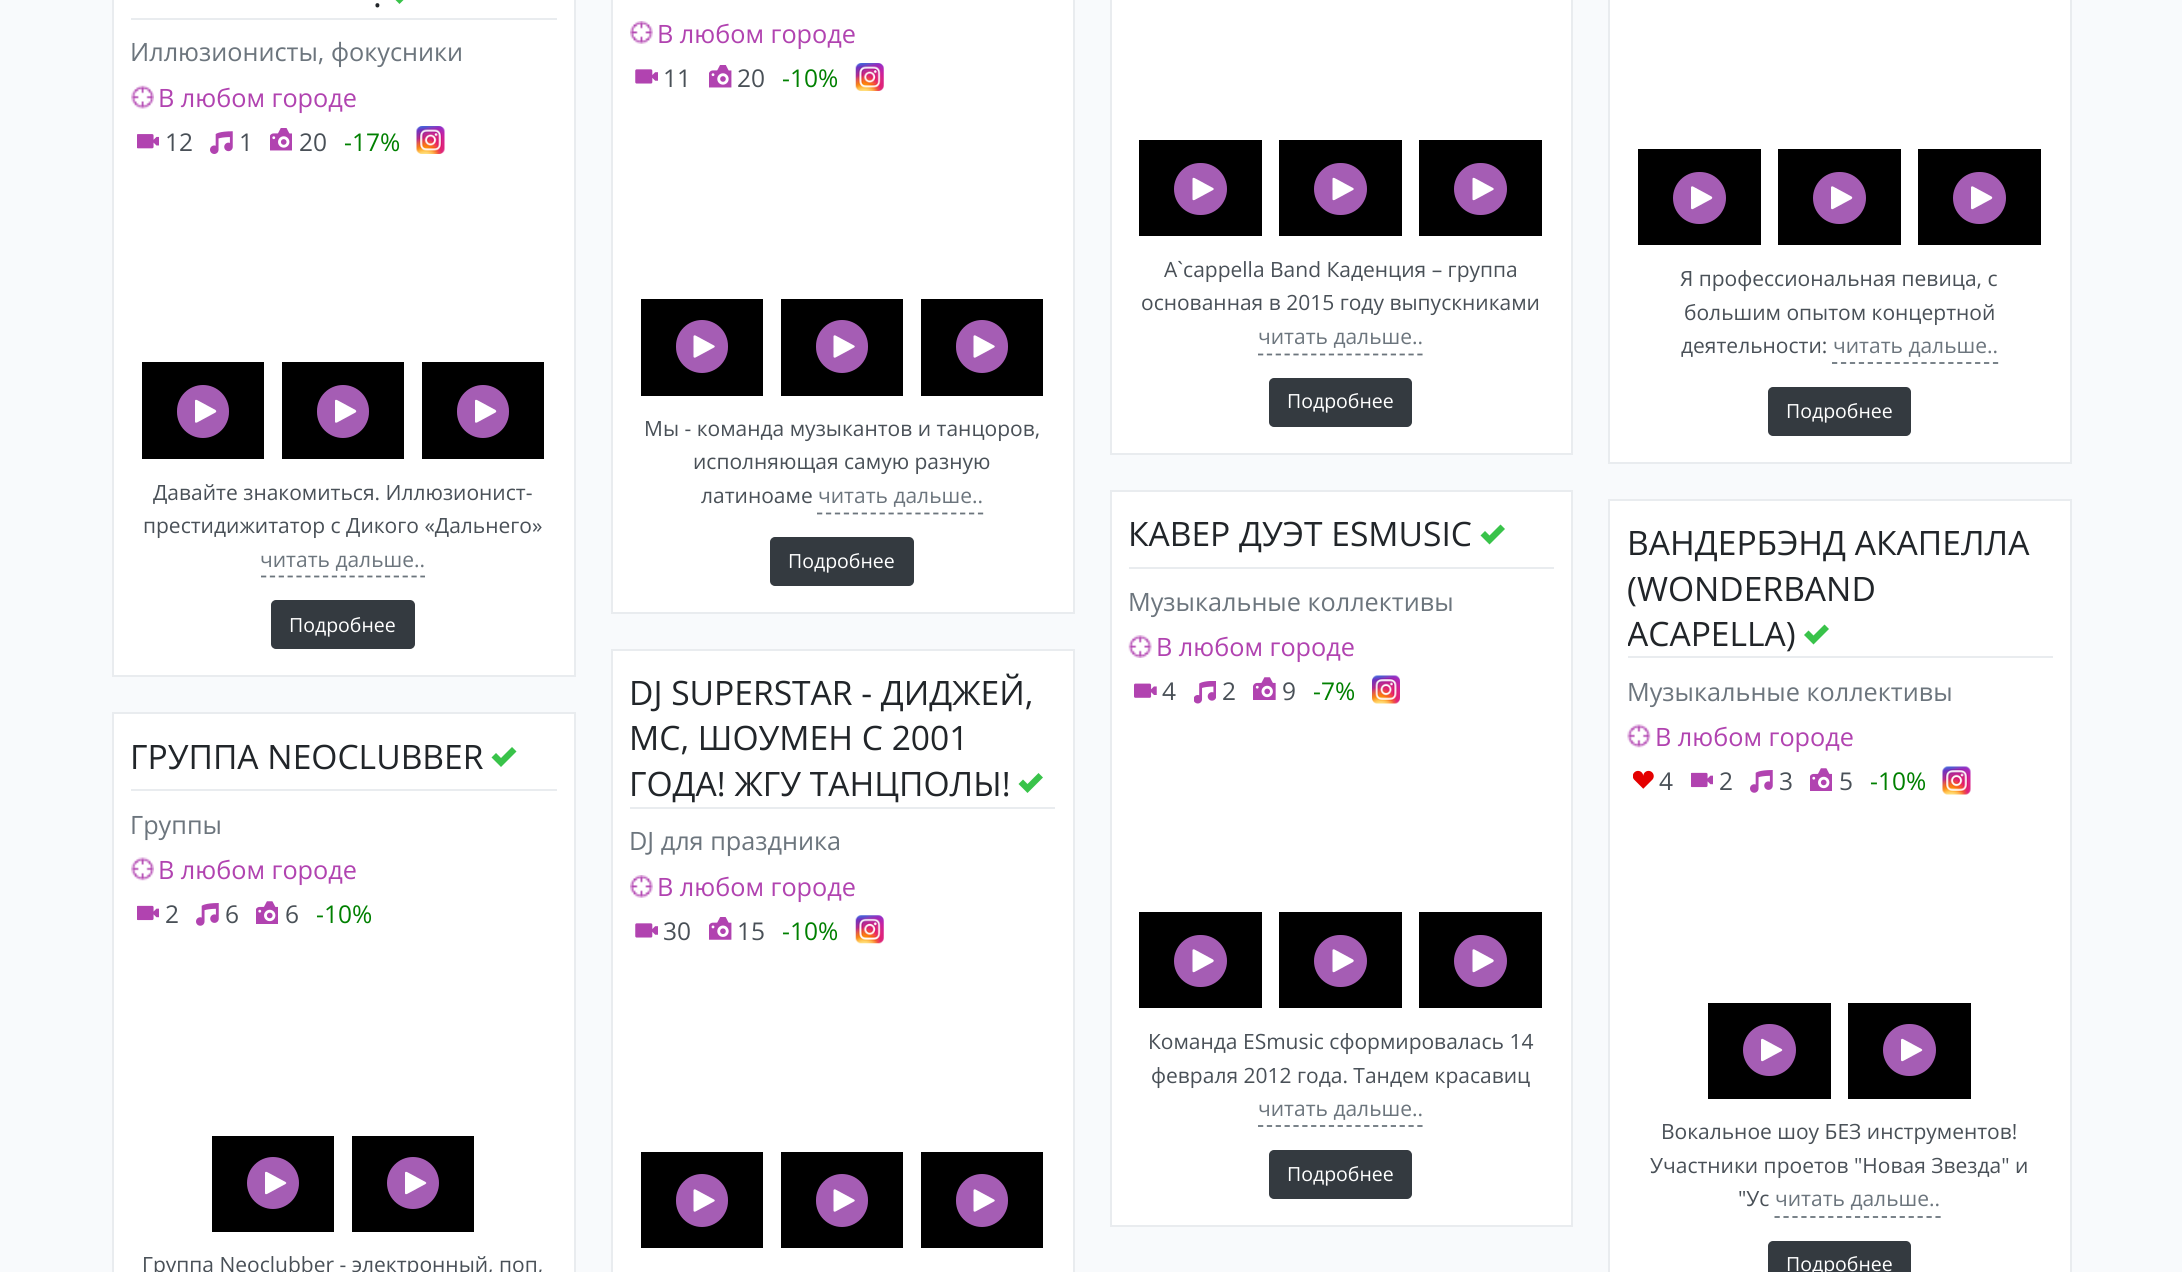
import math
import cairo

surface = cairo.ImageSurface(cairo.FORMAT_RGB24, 2182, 1272)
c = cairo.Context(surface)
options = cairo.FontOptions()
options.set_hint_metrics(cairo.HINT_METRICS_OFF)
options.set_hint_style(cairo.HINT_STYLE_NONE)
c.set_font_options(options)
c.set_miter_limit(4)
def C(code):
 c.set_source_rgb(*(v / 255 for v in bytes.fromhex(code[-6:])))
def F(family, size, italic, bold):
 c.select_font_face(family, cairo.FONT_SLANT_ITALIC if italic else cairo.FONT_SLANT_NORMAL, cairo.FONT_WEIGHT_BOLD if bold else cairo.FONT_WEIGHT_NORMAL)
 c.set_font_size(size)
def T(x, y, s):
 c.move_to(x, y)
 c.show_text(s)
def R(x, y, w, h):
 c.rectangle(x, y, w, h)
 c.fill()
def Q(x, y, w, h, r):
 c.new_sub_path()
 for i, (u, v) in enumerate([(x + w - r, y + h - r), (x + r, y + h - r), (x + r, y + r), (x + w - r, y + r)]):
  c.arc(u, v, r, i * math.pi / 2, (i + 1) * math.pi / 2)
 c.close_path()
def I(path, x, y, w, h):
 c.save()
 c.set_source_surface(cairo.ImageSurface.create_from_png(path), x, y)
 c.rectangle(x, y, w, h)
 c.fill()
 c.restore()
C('f8fafc')
c.paint()
C('ffffff')
c.rectangle(113,-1,462,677)
c.fill_preserve()
C('e9ecef')
c.stroke()
R(131,18,426,2)
C('39c34a')
c.new_path()
c.move_to(410.5,-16)
c.line_to(399.5,-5)
c.line_to(394.5,-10)
c.line_to(390,-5.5)
c.line_to(399.5,4)
c.line_to(415,-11.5)
c.close_path()
c.fill()
F('Open Sans',33.6,0,0)
C('212529')
T(373,7,'.')
F('Open Sans',25.25,0,0)
C('6c757d')
T(130,61,'Иллюзионисты, фокусники')
I('1.png',131,85,23,24)
C('b143b0')
T(158,107,'В любом городе')
I('2.png',137,134,22,15)
F('Open Sans',24.5,0,0)
C('495057')
T(165,151,'12')
I('3.png',210,131,23,23)
T(239,151,'1')
I('4.png',270,128,22,23)
T(299,151,'20')
C('008000')
T(344,151,'-17%')
I('5.png',416,126,29,28)
C('000000')
R(142,362,122,97)
C('a55db4')
Q(177,385,52,53,26)
c.fill()
C('ffffff')
c.set_fill_rule(cairo.FILL_RULE_EVEN_ODD)
c.new_path()
c.move_to(195,401)
c.curve_to(195,400,195.5,399.5,197,400)
c.line_to(215.5,410)
c.curve_to(216.5,411,216.5,411.5,215.5,412.5)
c.line_to(197,422.5)
c.curve_to(195.5,423,195,422.5,195,421.5)
c.close_path()
c.fill()
C('000000')
R(282,362,122,97)
C('a55db4')
Q(317,385,52,53,26)
c.fill()
C('ffffff')
c.new_path()
c.move_to(335,401)
c.curve_to(335,400,335.5,399.5,337,400)
c.line_to(355.5,410)
c.curve_to(356.5,411,356.5,411.5,355.5,412.5)
c.line_to(337,422.5)
c.curve_to(335.5,423,335,422.5,335,421.5)
c.close_path()
c.fill()
C('000000')
R(422,362,122,97)
C('a55db4')
Q(457,385,52,53,26)
c.fill()
C('ffffff')
c.new_path()
c.move_to(475,401)
c.curve_to(475,400,475.5,399.5,477,400)
c.line_to(495.5,410)
c.curve_to(496.5,411,496.5,411.5,495.5,412.5)
c.line_to(477,422.5)
c.curve_to(475.5,423,475,422.5,475,421.5)
c.close_path()
c.fill()
F('Open Sans',21,0,0)
C('495057')
T(153,500,'Давайте знакомиться. Иллюзионист-')
T(143,533,'престидижитатор с Дикого «Дальнего»')
c.new_path()
c.move_to(261,576.5)
c.line_to(425,576.5)
C('6c757d')
c.set_line_width(1.8)
c.set_dash([5.25,3.6])
c.stroke()
T(260,567,'читать дальше..')
C('343a40')
Q(272,601,142,47,4)
c.fill_preserve()
c.set_line_width(2)
c.set_dash([])
c.stroke()
F('Open Sans',19.5,0,0)
C('ffffff')
T(289,632,'Подробнее')
c.rectangle(113,713,462,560)
c.fill_preserve()
C('e9ecef')
c.stroke()
R(131,789,426,2)
F('Open Sans',33.6,0,0)
C('212529')
T(130,769,'ГРУППА NEOCLUBBER')
C('39c34a')
c.set_fill_rule(cairo.FILL_RULE_WINDING)
c.new_path()
c.move_to(512,747)
c.line_to(501,758)
c.line_to(496,753)
c.line_to(491.5,757.5)
c.line_to(501,767)
c.line_to(516.5,751.5)
c.close_path()
c.fill()
F('Open Sans',25.25,0,0)
C('6c757d')
T(130,834,'Группы')
I('6.png',131,857,23,24)
C('b143b0')
T(158,879,'В любом городе')
I('7.png',137,905,22,16)
F('Open Sans',24.5,0,0)
C('495057')
T(165,923,'2')
I('8.png',196,903,23,23)
T(225,923,'6')
I('9.png',256,901,22,23)
T(285,923,'6')
C('008000')
T(316,923,'-10%')
C('000000')
R(212,1136,122,96)
C('a55db4')
c.new_path()
c.arc(273,1183,26,0,2 * math.pi)
c.fill()
C('ffffff')
c.set_fill_rule(cairo.FILL_RULE_EVEN_ODD)
c.new_path()
c.move_to(265,1173)
c.curve_to(265,1172,265.5,1171.5,267,1172)
c.line_to(285.5,1182)
c.curve_to(286.5,1182.5,286.5,1183.5,285.5,1184)
c.line_to(267,1194)
c.curve_to(265.5,1194.5,265,1194,265,1193)
c.close_path()
c.fill()
C('000000')
R(352,1136,122,96)
C('a55db4')
c.arc(413,1183,26,0,2 * math.pi)
c.fill()
C('ffffff')
c.new_path()
c.move_to(405,1173)
c.curve_to(405,1172,405.5,1171.5,407,1172)
c.line_to(425.5,1182)
c.curve_to(426.5,1182.5,426.5,1183.5,425.5,1184)
c.line_to(407,1194)
c.curve_to(405.5,1194.5,405,1194,405,1193)
c.close_path()
c.fill()
F('Open Sans',21,0,0)
C('495057')
T(142,1272,'Группа Neoclubber - электронный, поп,')
C('ffffff')
c.rectangle(612,-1,462,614)
c.fill_preserve()
C('e9ecef')
c.stroke()
I('10.png',630,21,23,23)
F('Open Sans',25.25,0,0)
C('b143b0')
T(657,43,'В любом городе')
I('11.png',635,69,23,15)
F('Open Sans',24.5,0,0)
C('495057')
T(663,87,'11')
I('12.png',709,65,23,23)
T(737,87,'20')
C('008000')
T(782,87,'-10%')
I('13.png',855,63,29,28)
C('000000')
R(641,299,122,97)
C('a55db4')
Q(676,320,52,53,26)
c.fill()
C('ffffff')
c.new_path()
c.move_to(693.5,336.5)
c.curve_to(693.5,335.5,694.5,335,695.5,335.5)
c.line_to(714,345.5)
c.curve_to(715,346,715,347,714,347.5)
c.line_to(695.5,357.5)
c.curve_to(694.5,358,693.5,357.5,693.5,356.5)
c.close_path()
c.fill()
C('000000')
R(781,299,122,97)
C('a55db4')
Q(816,320,52,53,26)
c.fill()
C('ffffff')
c.new_path()
c.move_to(833.5,336.5)
c.curve_to(833.5,335.5,834.5,335,835.5,335.5)
c.line_to(854,345.5)
c.curve_to(855,346,855,347,854,347.5)
c.line_to(835.5,357.5)
c.curve_to(834.5,358,833.5,357.5,833.5,356.5)
c.close_path()
c.fill()
C('000000')
R(921,299,122,97)
C('a55db4')
Q(956,320,52,53,26)
c.fill()
C('ffffff')
c.new_path()
c.move_to(973.5,336.5)
c.curve_to(973.5,335.5,974.5,335,975.5,335.5)
c.line_to(994,345.5)
c.curve_to(995,346,995,347,994,347.5)
c.line_to(975.5,357.5)
c.curve_to(974.5,358,973.5,357.5,973.5,356.5)
c.close_path()
c.fill()
F('Open Sans',21,0,0)
C('495057')
T(644,436,'Мы - команда музыкантов и танцоров,')
T(693,469,'исполняющая самую разную')
T(701,503,'латиноаме')
c.new_path()
c.move_to(817,513.5)
c.line_to(983.5,513.5)
C('6c757d')
c.set_line_width(1.8)
c.set_dash([5.25,3.69])
c.stroke()
T(818,503,'читать дальше..')
C('343a40')
Q(771,538,142,47,4)
c.fill_preserve()
c.set_line_width(2)
c.set_dash([])
c.stroke()
F('Open Sans',19.5,0,0)
C('ffffff')
T(788,568,'Подробнее')
c.rectangle(612,650,462,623)
c.fill_preserve()
C('e9ecef')
c.stroke()
R(630,807,425,2)
F('Open Sans',33.6,0,0)
C('212529')
T(629,705,'DJ SUPERSTAR - ДИДЖЕЙ,')
T(629,750,'MC, ШОУМЕН С 2001')
T(629,796,'ГОДА! ЖГУ ТАНЦПОЛЫ!')
C('39c34a')
c.set_fill_rule(cairo.FILL_RULE_WINDING)
c.new_path()
c.move_to(1038.5,773)
c.line_to(1027.5,784)
c.line_to(1023,779.5)
c.line_to(1018.5,784)
c.line_to(1027.5,793)
c.line_to(1043,777.5)
c.close_path()
c.fill()
F('Open Sans',25.25,0,0)
C('6c757d')
T(629,850,'DJ для праздника')
I('10.png',630,875,23,23)
C('b143b0')
T(657,896,'В любом городе')
I('11.png',635,923,23,15)
F('Open Sans',24.5,0,0)
C('495057')
T(663,940,'30')
I('14.png',709,917,23,23)
T(737,940,'15')
C('008000')
T(782,940,'-10%')
I('15.png',855,915,29,29)
C('000000')
R(641,1152,122,96)
C('a55db4')
Q(676,1174,52,53,26)
c.fill()
C('ffffff')
c.set_fill_rule(cairo.FILL_RULE_EVEN_ODD)
c.new_path()
c.move_to(693.5,1190.5)
c.curve_to(693.5,1189.5,694.5,1189,695.5,1189.5)
c.line_to(714,1199.5)
c.curve_to(715,1200,715,1201,714,1201.5)
c.line_to(695.5,1211.5)
c.curve_to(694.5,1212,693.5,1211.5,693.5,1210.5)
c.close_path()
c.fill()
C('000000')
R(781,1152,122,96)
C('a55db4')
Q(816,1174,52,53,26)
c.fill()
C('ffffff')
c.new_path()
c.move_to(833.5,1190.5)
c.curve_to(833.5,1189.5,834.5,1189,835.5,1189.5)
c.line_to(854,1199.5)
c.curve_to(855,1200,855,1201,854,1201.5)
c.line_to(835.5,1211.5)
c.curve_to(834.5,1212,833.5,1211.5,833.5,1210.5)
c.close_path()
c.fill()
C('000000')
R(921,1152,122,96)
C('a55db4')
Q(956,1174,52,53,26)
c.fill()
C('ffffff')
c.new_path()
c.move_to(973.5,1190.5)
c.curve_to(973.5,1189.5,974.5,1189,975.5,1189.5)
c.line_to(994,1199.5)
c.curve_to(995,1200,995,1201,994,1201.5)
c.line_to(975.5,1211.5)
c.curve_to(974.5,1212,973.5,1211.5,973.5,1210.5)
c.close_path()
c.fill()
c.rectangle(1111,-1,461,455)
c.fill_preserve()
C('e9ecef')
c.stroke()
C('000000')
R(1139,140,123,96)
C('a55db4')
Q(1174,163,53,52,26)
c.fill()
C('ffffff')
c.new_path()
c.move_to(1192.5,179)
c.curve_to(1192.5,178,1193,177.5,1194.5,178)
c.line_to(1213,188)
c.curve_to(1214,188.5,1214,189.5,1213,190)
c.line_to(1194.5,200)
c.curve_to(1193,200.5,1192.5,200,1192.5,199)
c.close_path()
c.fill()
C('000000')
R(1279,140,123,96)
C('a55db4')
Q(1314,163,53,52,26)
c.fill()
C('ffffff')
c.new_path()
c.move_to(1332.5,179)
c.curve_to(1332.5,178,1333,177.5,1334.5,178)
c.line_to(1353,188)
c.curve_to(1354,188.5,1354,189.5,1353,190)
c.line_to(1334.5,200)
c.curve_to(1333,200.5,1332.5,200,1332.5,199)
c.close_path()
c.fill()
C('000000')
R(1419,140,123,96)
C('a55db4')
Q(1454,163,53,52,26)
c.fill()
C('ffffff')
c.new_path()
c.move_to(1472.5,179)
c.curve_to(1472.5,178,1473,177.5,1474.5,178)
c.line_to(1493,188)
c.curve_to(1494,188.5,1494,189.5,1493,190)
c.line_to(1474.5,200)
c.curve_to(1473,200.5,1472.5,200,1472.5,199)
c.close_path()
c.fill()
F('Open Sans',21,0,0)
C('495057')
T(1164,277,'A`cappella Band Каденция – группа')
T(1141,310,'основанная в 2015 году выпускниками')
c.new_path()
c.move_to(1258,354.5)
c.line_to(1423,354.5)
C('6c757d')
c.set_line_width(1.8)
c.set_dash([5.25,3.6])
c.stroke()
T(1258,344,'читать дальше..')
C('343a40')
Q(1270,379,141,47,4)
c.fill_preserve()
c.set_line_width(2)
c.set_dash([])
c.stroke()
F('Open Sans',19.5,0,0)
C('ffffff')
T(1287,408,'Подробнее')
c.rectangle(1111,491,461,735)
c.fill_preserve()
C('e9ecef')
c.stroke()
R(1129,567,425,2)
F('Open Sans',33.6,0,0)
C('212529')
T(1128,546,'КАВЕР ДУЭТ ESMUSIC')
C('39c34a')
c.set_fill_rule(cairo.FILL_RULE_WINDING)
c.new_path()
c.move_to(1500.5,524.5)
c.line_to(1489.5,535.5)
c.line_to(1485,531)
c.line_to(1480.5,535.5)
c.line_to(1489.5,544.5)
c.line_to(1505,529)
c.close_path()
c.fill()
F('Open Sans',25.25,0,0)
C('6c757d')
T(1128,611,'Музыкальные коллективы')
I('16.png',1128,635,24,23)
C('b143b0')
T(1156,656,'В любом городе')
I('17.png',1134,683,23,15)
F('Open Sans',24.5,0,0)
C('495057')
T(1162,700,'4')
I('18.png',1194,681,22,23)
T(1222,700,'2')
I('19.png',1253,677,23,23)
T(1282,700,'9')
C('008000')
T(1313,700,'-7%')
I('20.png',1372,675,28,29)
C('000000')
R(1139,912,123,96)
C('a55db4')
Q(1174,935,53,52,26)
c.fill()
C('ffffff')
c.set_fill_rule(cairo.FILL_RULE_EVEN_ODD)
c.new_path()
c.move_to(1192.5,950.5)
c.curve_to(1192.5,949.5,1193,949,1194.5,949.5)
c.line_to(1213,959.5)
c.curve_to(1214,960.5,1214,961,1213,962)
c.line_to(1194.5,972)
c.curve_to(1193,972.5,1192.5,972,1192.5,971)
c.close_path()
c.fill()
C('000000')
R(1279,912,123,96)
C('a55db4')
Q(1314,935,53,52,26)
c.fill()
C('ffffff')
c.new_path()
c.move_to(1332.5,950.5)
c.curve_to(1332.5,949.5,1333,949,1334.5,949.5)
c.line_to(1353,959.5)
c.curve_to(1354,960.5,1354,961,1353,962)
c.line_to(1334.5,972)
c.curve_to(1333,972.5,1332.5,972,1332.5,971)
c.close_path()
c.fill()
C('000000')
R(1419,912,123,96)
C('a55db4')
Q(1454,935,53,52,26)
c.fill()
C('ffffff')
c.new_path()
c.move_to(1472.5,950.5)
c.curve_to(1472.5,949.5,1473,949,1474.5,949.5)
c.line_to(1493,959.5)
c.curve_to(1494,960.5,1494,961,1493,962)
c.line_to(1474.5,972)
c.curve_to(1473,972.5,1472.5,972,1472.5,971)
c.close_path()
c.fill()
F('Open Sans',21,0,0)
C('495057')
T(1148,1049,'Команда ESmusic сформировалась 14')
T(1151,1083,'февраля 2012 года. Тандем красавиц')
c.new_path()
c.move_to(1258,1126)
c.line_to(1423,1126)
C('6c757d')
c.set_line_width(1.8)
c.set_dash([5.25,3.6])
c.stroke()
T(1258,1116,'читать дальше..')
C('343a40')
Q(1270,1151,141,47,4)
c.fill_preserve()
c.set_line_width(2)
c.set_dash([])
c.stroke()
F('Open Sans',19.5,0,0)
C('ffffff')
T(1287,1181,'Подробнее')
c.rectangle(1609,-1,462,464)
c.fill_preserve()
C('e9ecef')
c.stroke()
C('000000')
R(1638,149,123,96)
C('a55db4')
Q(1673,172,53,52,26)
c.fill()
C('ffffff')
c.new_path()
c.move_to(1691,187.5)
c.curve_to(1691,186.5,1692,186,1693,186.5)
c.line_to(1711.5,196.5)
c.curve_to(1712.5,197.5,1712.5,198,1711.5,199)
c.line_to(1693,209)
c.curve_to(1692,209.5,1691,209,1691,208)
c.close_path()
c.fill()
C('000000')
R(1778,149,123,96)
C('a55db4')
Q(1813,172,53,52,26)
c.fill()
C('ffffff')
c.new_path()
c.move_to(1831,187.5)
c.curve_to(1831,186.5,1832,186,1833,186.5)
c.line_to(1851.5,196.5)
c.curve_to(1852.5,197.5,1852.5,198,1851.5,199)
c.line_to(1833,209)
c.curve_to(1832,209.5,1831,209,1831,208)
c.close_path()
c.fill()
C('000000')
R(1918,149,123,96)
C('a55db4')
Q(1953,172,53,52,26)
c.fill()
C('ffffff')
c.new_path()
c.move_to(1971,187.5)
c.curve_to(1971,186.5,1972,186,1973,186.5)
c.line_to(1991.5,196.5)
c.curve_to(1992.5,197.5,1992.5,198,1991.5,199)
c.line_to(1973,209)
c.curve_to(1972,209.5,1971,209,1971,208)
c.close_path()
c.fill()
F('Open Sans',21,0,0)
C('495057')
T(1680,286,'Я профессиональная певица, c')
T(1684,320,'большим опытом концертной')
T(1681,353,'деятельности:')
c.new_path()
c.move_to(1832,363)
c.line_to(1998.5,363)
C('6c757d')
c.set_line_width(1.8)
c.set_dash([5.25,3.69])
c.stroke()
T(1833,353,'читать дальше..')
C('343a40')
Q(1769,388,141,47,4)
c.fill_preserve()
c.set_line_width(2)
c.set_dash([])
c.stroke()
F('Open Sans',19.5,0,0)
C('ffffff')
T(1786,418,'Подробнее')
c.rectangle(1609,500,462,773)
c.fill_preserve()
C('e9ecef')
c.stroke()
R(1628,656,425,2)
F('Open Sans',33.6,0,0)
C('212529')
T(1627,555,'ВАНДЕРБЭНД АКАПЕЛЛА')
T(1627,601,'(WONDERBAND')
c.save()
c.set_fill_rule(cairo.FILL_RULE_WINDING)
c.rectangle(1628,518,425,138)
c.clip()
T(1627,646,'ACAPELLA)')
c.restore()
C('39c34a')
c.set_fill_rule(cairo.FILL_RULE_WINDING)
c.new_path()
c.move_to(1824.5,624.5)
c.line_to(1813.5,635.5)
c.line_to(1808.5,630.5)
c.line_to(1804,635)
c.line_to(1813.5,644.5)
c.line_to(1829,629)
c.close_path()
c.fill()
F('Open Sans',25.25,0,0)
C('6c757d')
T(1627,701,'Музыкальные коллективы')
I('21.png',1627,724,24,24)
C('b143b0')
T(1655,746,'В любом городе')
I('22.png',1633,770,21,19)
F('Open Sans',24.5,0,0)
C('495057')
T(1659,790,'4')
I('7.png',1691,772,22,16)
T(1719,790,'2')
I('8.png',1750,770,23,23)
T(1779,790,'3')
I('9.png',1810,768,22,23)
T(1839,790,'5')
C('008000')
T(1870,790,'-10%')
I('23.png',1942,766,29,29)
C('000000')
R(1708,1003,123,96)
C('a55db4')
Q(1743,1024,53,52,26)
c.fill()
C('ffffff')
c.set_fill_rule(cairo.FILL_RULE_EVEN_ODD)
c.new_path()
c.move_to(1761,1040)
c.curve_to(1761,1039,1762,1038.5,1763,1039)
c.line_to(1781.5,1049)
c.curve_to(1782.5,1049.5,1782.5,1050.5,1781.5,1051)
c.line_to(1763,1061)
c.curve_to(1762,1061.5,1761,1061,1761,1060)
c.close_path()
c.fill()
C('000000')
R(1848,1003,123,96)
C('a55db4')
Q(1883,1024,53,52,26)
c.fill()
C('ffffff')
c.new_path()
c.move_to(1901,1040)
c.curve_to(1901,1039,1902,1038.5,1903,1039)
c.line_to(1921.5,1049)
c.curve_to(1922.5,1049.5,1922.5,1050.5,1921.5,1051)
c.line_to(1903,1061)
c.curve_to(1902,1061.5,1901,1061,1901,1060)
c.close_path()
c.fill()
F('Open Sans',21,0,0)
C('495057')
T(1661,1139,'Вокальное шоу БЕЗ инструментов!')
T(1650,1173,'Участники проетов "Новая Звезда" и')
T(1738,1206,'"Ус')
c.new_path()
c.move_to(1774.5,1217)
c.line_to(1941,1217)
C('6c757d')
c.set_line_width(1.8)
c.set_dash([5.25,3.69])
c.stroke()
T(1775,1206,'читать дальше..')
C('343a40')
Q(1769,1242,141,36,4)
c.fill_preserve()
c.set_line_width(2)
c.set_dash([])
c.stroke()
F('Open Sans',19.5,0,0)
C('ffffff')
T(1786,1271,'Подробнее')
surface.write_to_png('o.png')
